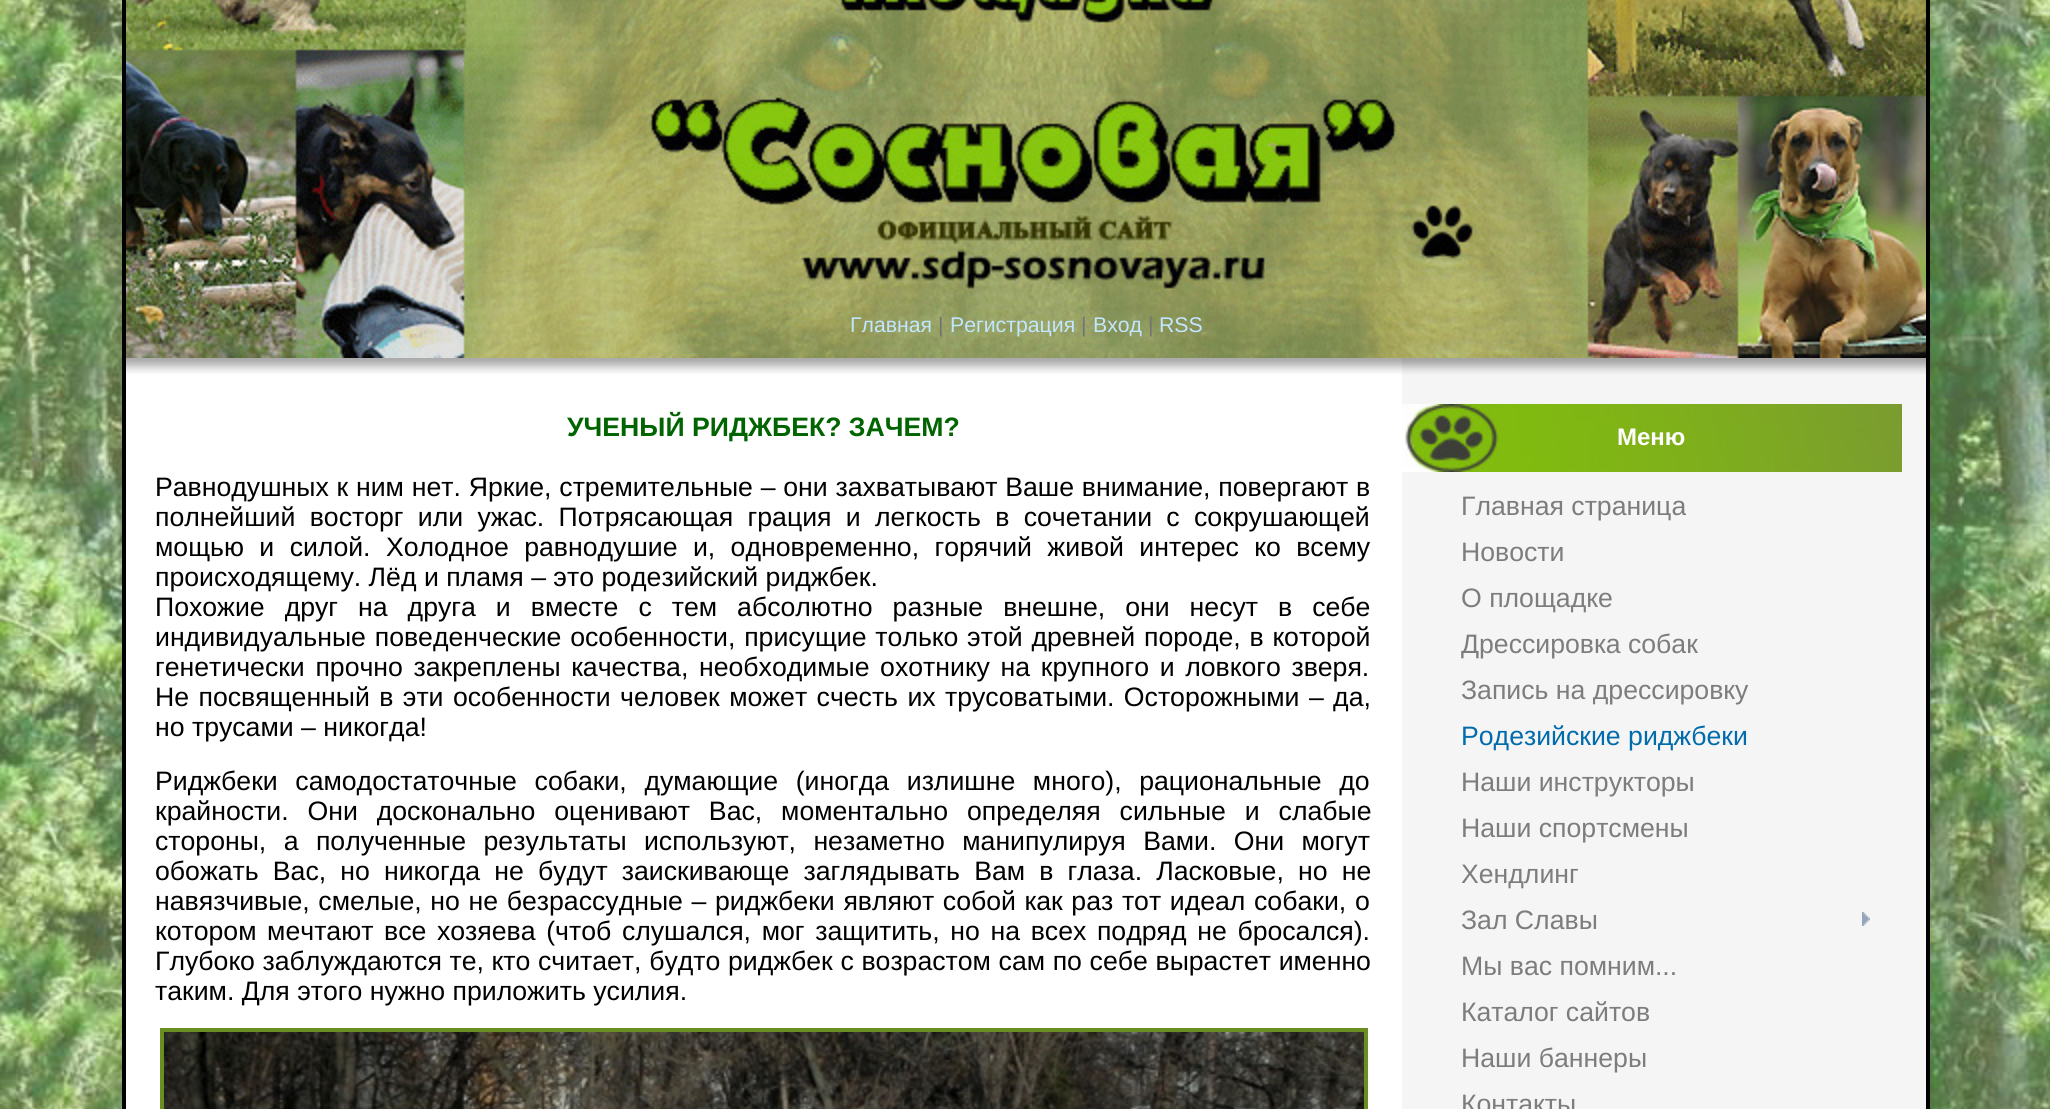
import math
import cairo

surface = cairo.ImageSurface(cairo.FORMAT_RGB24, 2050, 1109)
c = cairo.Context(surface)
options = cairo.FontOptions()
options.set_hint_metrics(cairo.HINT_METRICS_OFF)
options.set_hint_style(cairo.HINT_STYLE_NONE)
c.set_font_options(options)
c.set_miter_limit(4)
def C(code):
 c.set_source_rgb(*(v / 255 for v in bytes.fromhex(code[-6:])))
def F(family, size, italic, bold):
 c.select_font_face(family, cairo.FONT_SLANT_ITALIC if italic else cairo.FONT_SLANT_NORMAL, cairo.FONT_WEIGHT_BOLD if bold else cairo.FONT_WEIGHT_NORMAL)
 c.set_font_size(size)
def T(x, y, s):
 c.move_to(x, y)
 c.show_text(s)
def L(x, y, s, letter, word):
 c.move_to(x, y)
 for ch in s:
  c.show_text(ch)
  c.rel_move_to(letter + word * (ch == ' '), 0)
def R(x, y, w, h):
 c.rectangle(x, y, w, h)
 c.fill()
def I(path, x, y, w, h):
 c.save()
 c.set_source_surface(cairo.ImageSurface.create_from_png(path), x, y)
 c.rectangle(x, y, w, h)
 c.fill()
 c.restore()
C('ffffff')
c.paint()
I('1.png',0,0,2050,1109)
I('2.png',122,0,1808,1109)
I('3.png',126,0,1800,358)
F('Liberation Sans',21.25,0,0)
C('c1e7ff')
T(850,332,'Главная')
C('727272')
T(938,332,'|')
C('c1e7ff')
T(950,332,'Регистрация')
C('727272')
T(1081,332,'|')
C('c1e7ff')
T(1093,332,'Вход')
C('727272')
T(1148,332,'|')
C('c1e7ff')
T(1159,332,'RSS')
C('ffffff')
R(126,374,1276,735)
I('4.png',126,358,1276,16)
F('Liberation Sans',26.65,0,1)
C('006400')
T(567,436,'УЧЕНЫЙ РИДЖБЕК? ЗАЧЕМ?')
F('Liberation Sans',26.65,0,0)
C('000000')
L(155,496,'Равнодушных к ним нет. Яркие, стремительные – они захватывают Ваше внимание, повергают в',0,.4)
L(155,526,'полнейший восторг или ужас. Потрясающая грация и легкость в сочетании с сокрушающей',0,6.9)
L(155,556,'мощью и силой. Холодное равнодушие и, одновременно, горячий живой интерес ко всему',0,8)
T(155,586,'происходящему. Лёд и пламя – это родезийский риджбек.')
L(155,616,'Похожие друг на друга и вместе с тем абсолютно разные внешне, они несут в себе',0,12.6)
L(155,646,'индивидуальные поведенческие особенности, присущие только этой древней породе, в которой',0,1.4)
L(155,676,'генетически прочно закреплены качества, необходимые охотнику на крупного и ловкого зверя.',0,3.25)
L(155,706,'Не посвященный в эти особенности человек может счесть их трусоватыми. Осторожными – да,',0,2)
T(155,736,'но трусами – никогда!')
L(155,790,'Риджбеки самодостаточные собаки, думающие (иногда излишне много), рациональные до',0,10.25)
L(155,820,'крайности. Они досконально оценивают Вас, моментально определяя сильные и слабые',0,11.5)
L(155,850,'стороны, а полученные результаты используют, незаметно манипулируя Вами. Они могут',0,10)
L(155,880,'обожать Вас, но никогда не будут заискивающе заглядывать Вам в глаза. Ласковые, но не',0,6.75)
L(155,910,'навязчивые, смелые, но не безрассудные – риджбеки являют собой как раз тот идеал собаки, о',0,1.25)
L(155,940,'котором мечтают все хозяева (чтоб слушался, мог защитить, но на всех подряд не бросался).',0,3.25)
L(155,970,'Глубоко заблуждаются те, кто считает, будто риджбек с возрастом сам по себе вырастет именно',0,.25)
T(155,1000,'таким. Для этого нужно приложить усилия.')
c.rectangle(162,1030,1204,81)
C('6b8e23')
c.set_line_width(4)
c.stroke()
I('5.png',164,1032,1200,77)
C('f5f5f5')
R(1402,374,524,735)
I('6.png',1402,358,524,16)
I('7.png',1402,404,500,68)
F('Liberation Sans',24,0,1)
C('ffffff')
T(1617,445,'Меню')
F('Liberation Sans',26.65,0,0)
C('7d7d7d')
T(1461,515,'Главная страница')
T(1461,561,'Новости')
T(1461,607,'О площадке')
T(1461,653,'Дрессировка собак')
T(1461,699,'Запись на дрессировку')
C('016cac')
T(1461,745,'Родезийские риджбеки')
C('7d7d7d')
T(1461,791,'Наши инструкторы')
T(1461,837,'Наши спортсмены')
T(1461,883,'Хендлинг')
T(1461,929,'Зал Славы')
I('8.png',1862,912,8,14)
T(1461,975,'Мы вас помним...')
T(1461,1021,'Каталог сайтов')
T(1461,1067,'Наши баннеры')
T(1461,1113,'Контакты')
surface.write_to_png('o.png')
